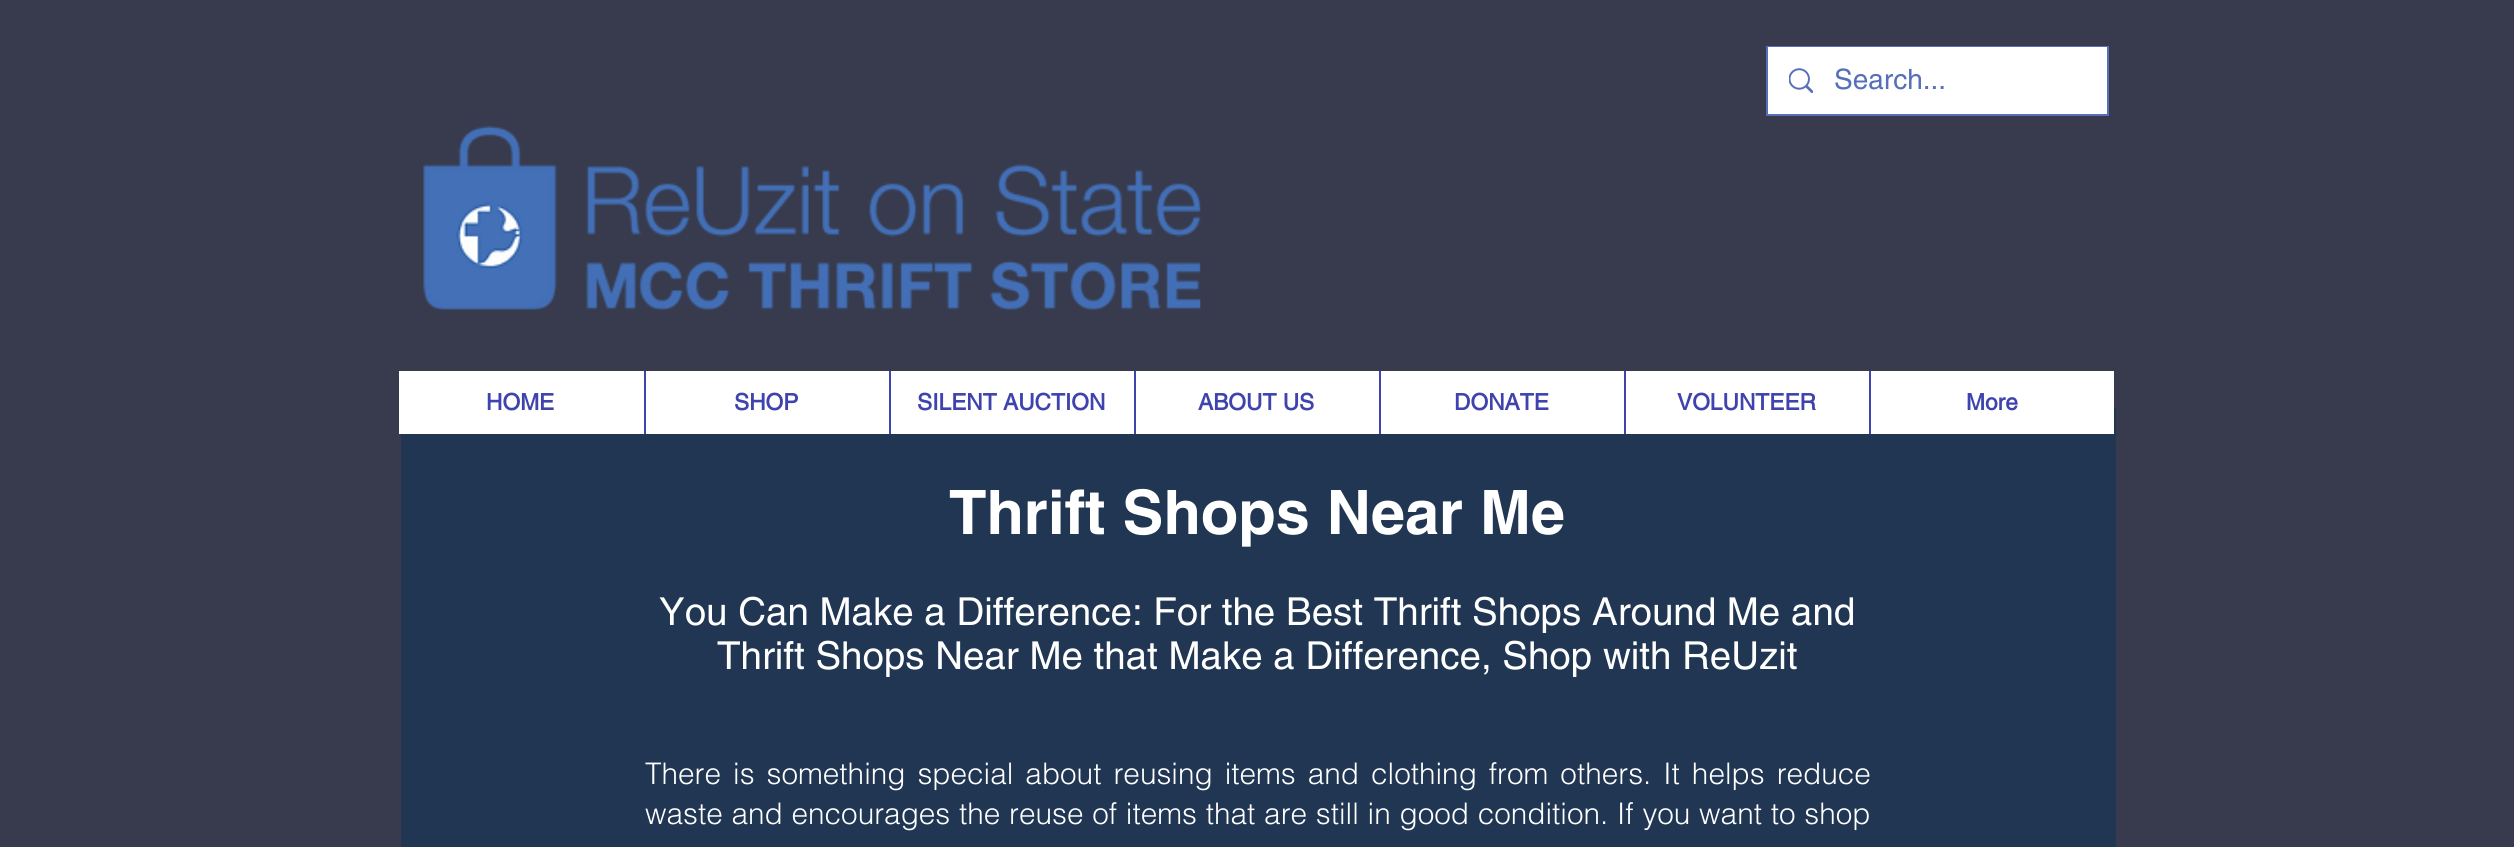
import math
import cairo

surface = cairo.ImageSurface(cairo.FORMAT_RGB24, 2514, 847)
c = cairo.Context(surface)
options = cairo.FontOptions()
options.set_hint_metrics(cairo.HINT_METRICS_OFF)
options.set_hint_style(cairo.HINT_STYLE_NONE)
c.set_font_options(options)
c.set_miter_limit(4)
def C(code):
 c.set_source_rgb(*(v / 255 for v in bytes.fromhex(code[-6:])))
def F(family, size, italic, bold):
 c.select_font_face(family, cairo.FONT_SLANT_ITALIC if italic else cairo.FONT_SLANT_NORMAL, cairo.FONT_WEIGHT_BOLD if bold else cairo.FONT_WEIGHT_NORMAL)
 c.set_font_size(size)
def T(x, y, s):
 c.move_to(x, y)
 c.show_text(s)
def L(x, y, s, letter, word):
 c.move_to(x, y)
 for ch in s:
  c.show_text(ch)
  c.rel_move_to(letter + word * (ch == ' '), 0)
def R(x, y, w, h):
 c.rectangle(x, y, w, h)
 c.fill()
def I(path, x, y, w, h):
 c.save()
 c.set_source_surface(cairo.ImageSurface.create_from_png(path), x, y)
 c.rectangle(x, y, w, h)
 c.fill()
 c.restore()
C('373b4d')
c.paint()
c.rectangle(1767,47,341,68)
C('566fb8')
c.stroke()
C('ffffff')
R(1768,47,339,67)
I('1.png',1789,68,24,25)
F('helvetica',28,0,0)
C('566fb8')
T(1834,89,'Search...')
I('2.png',423,126,778,184)
C('203653')
R(401,408,1715,439)
C('ffffff')
R(399,371,1715,63)
F('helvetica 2',22.75,0,1)
C('3f43ad')
T(486,410,'HOME')
R(644,371,2,63)
T(734,410,'SHOP')
R(889,371,2,63)
T(917,410,'SILENT AUCTION')
R(1134,371,2,63)
T(1198,410,'ABOUT US')
R(1379,371,2,63)
T(1454,410,'DONATE')
R(1624,371,2,63)
T(1677,410,'VOLUNTEER')
R(1869,371,2,63)
T(1966,410,'More')
F('helvetica',61.25,0,1)
C('ffffff')
T(949,534,'Thrift Shops Near Me')
F('helvetica',38.5,0,0)
T(659,625,'You Can Make a Difference: For the Best Thrift Shops Around Me and')
T(717,669,'Thrift Shops Near Me that Make a Difference, Shop with ReUzit')
F('helvetica Light',29.75,0,0)
L(645,784,'There is something special about reusing items and clothing from others. It helps reduce',0,3.75)
L(645,824,'waste and encourages the reuse of items that are still in good condition. If you want to shop',0,.5)
surface.write_to_png('o.png')
